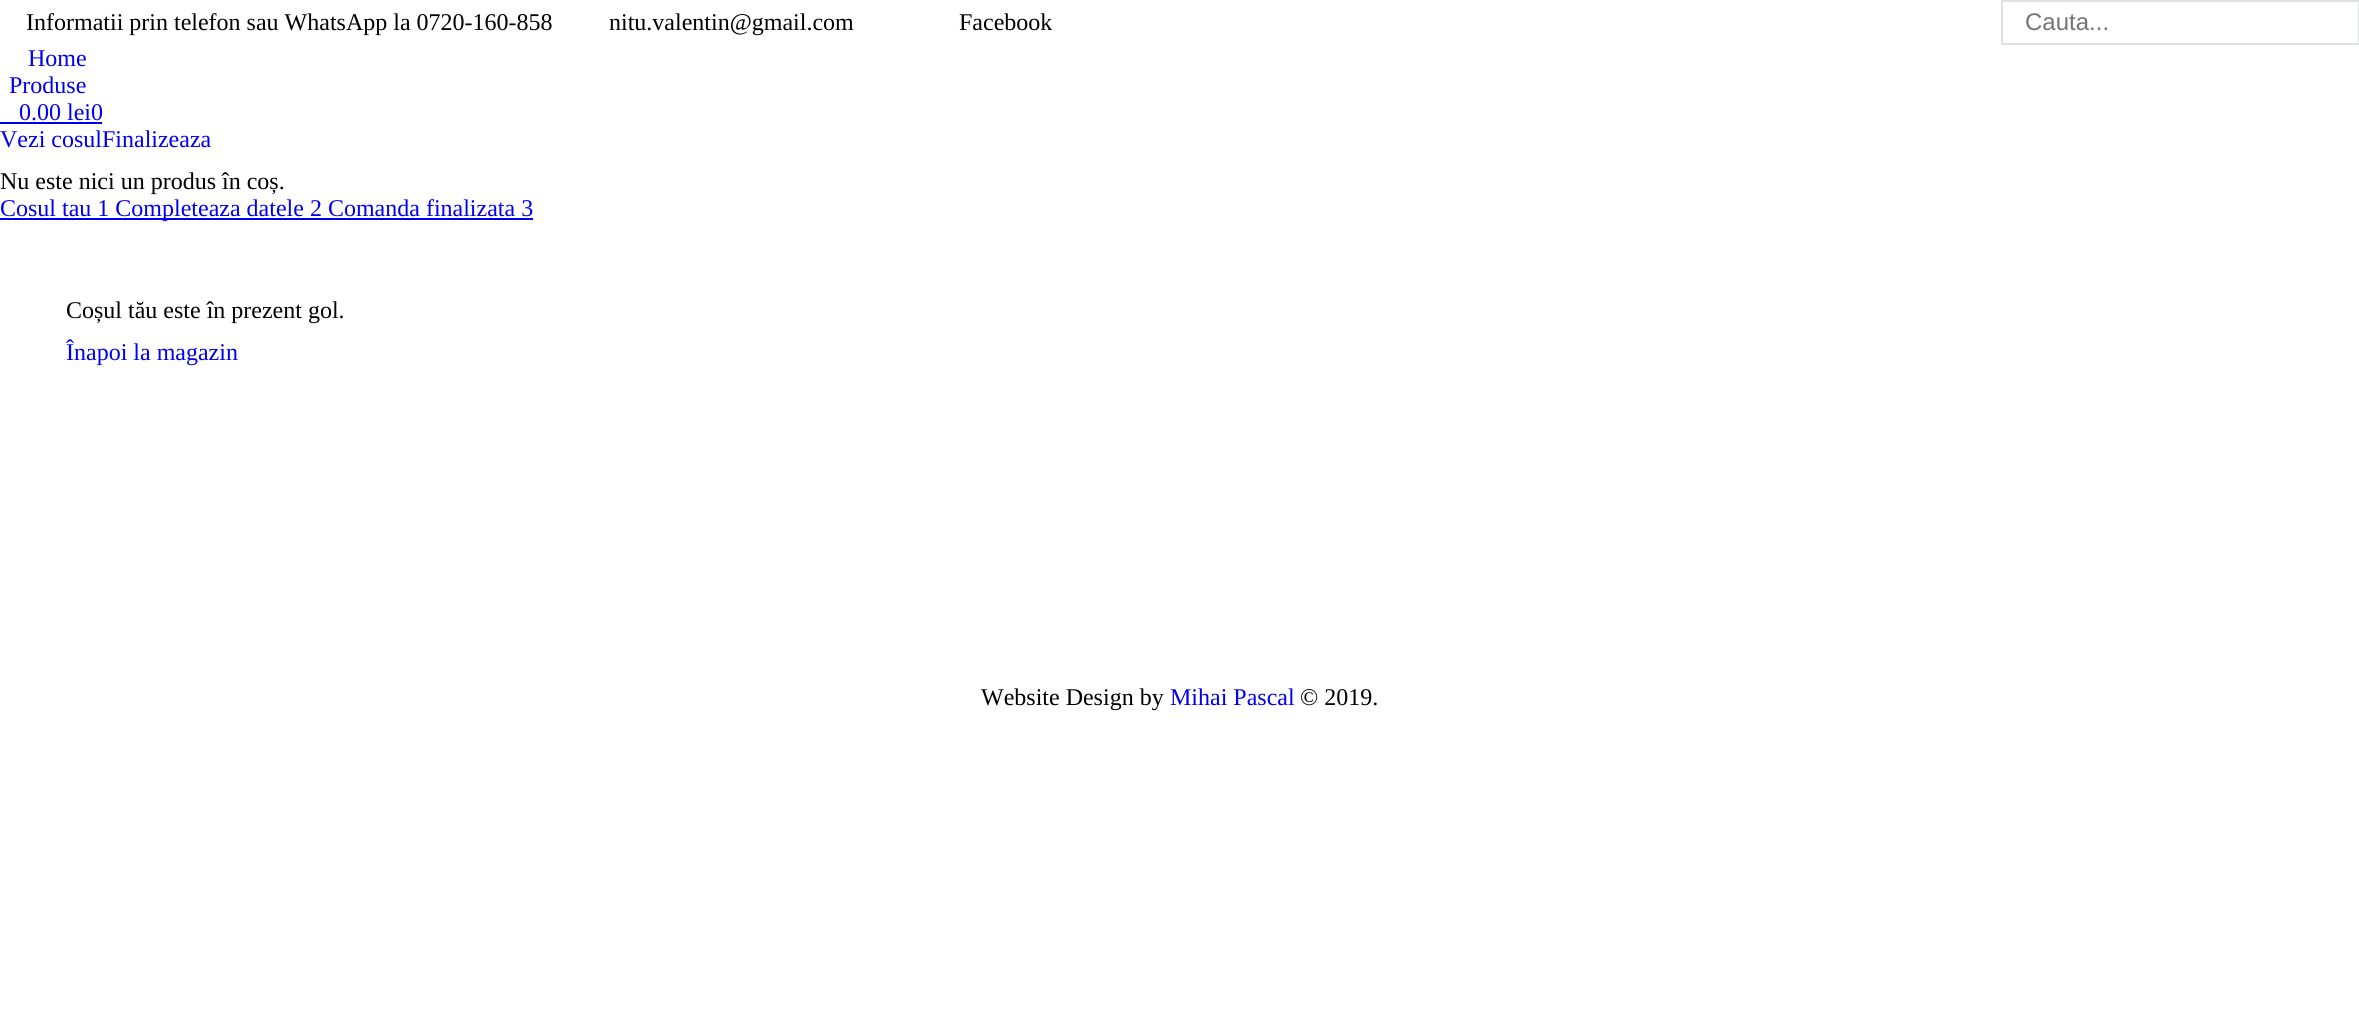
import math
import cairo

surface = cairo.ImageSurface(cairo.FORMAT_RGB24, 2359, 1033)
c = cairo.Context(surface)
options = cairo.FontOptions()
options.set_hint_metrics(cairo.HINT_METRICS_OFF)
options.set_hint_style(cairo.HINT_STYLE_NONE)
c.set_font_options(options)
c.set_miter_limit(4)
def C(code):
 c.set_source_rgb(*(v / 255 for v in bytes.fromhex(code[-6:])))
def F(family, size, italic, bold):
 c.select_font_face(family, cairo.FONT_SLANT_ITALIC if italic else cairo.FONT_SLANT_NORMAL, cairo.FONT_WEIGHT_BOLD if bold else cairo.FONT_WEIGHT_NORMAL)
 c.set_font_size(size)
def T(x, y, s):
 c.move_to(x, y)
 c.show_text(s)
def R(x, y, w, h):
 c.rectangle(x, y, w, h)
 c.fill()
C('ffffff')
c.paint()
F('Liberation Serif',24,0,0)
C('000000')
T(26,30,'Informatii prin telefon sau WhatsApp la 0720-160-858')
T(609,30,'nitu.valentin@gmail.com')
T(959,30,'Facebook')
c.rectangle(2002,1,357,43)
C('e0e1e1')
c.stroke()
F('Liberation Sans',24,0,0)
C('757575')
T(2025,30,'Cauta...')
F('Liberation Serif',24,0,0)
C('0000ee')
T(28,66,'Home')
T(9,93,'Produse')
T(19,120,'0.00 lei0')
R(0,122,102,2)
T(0,147,'Vezi cosulFinalizeaza')
C('000000')
T(0,189,'Nu este nici un produs în coș.')
C('0000ee')
R(0,218,533,2)
T(0,216,'Cosul tau 1 Completeaza datele 2 Comanda finalizata 3')
C('000000')
T(66,318,'Coșul tău este în prezent gol.')
C('0000ee')
T(66,360,'Înapoi la magazin')
C('000000')
T(981,705,'Website Design by')
C('0000ee')
T(1170,705,'Mihai Pascal')
C('000000')
T(1300,705,'© 2019.')
surface.write_to_png('o.png')
